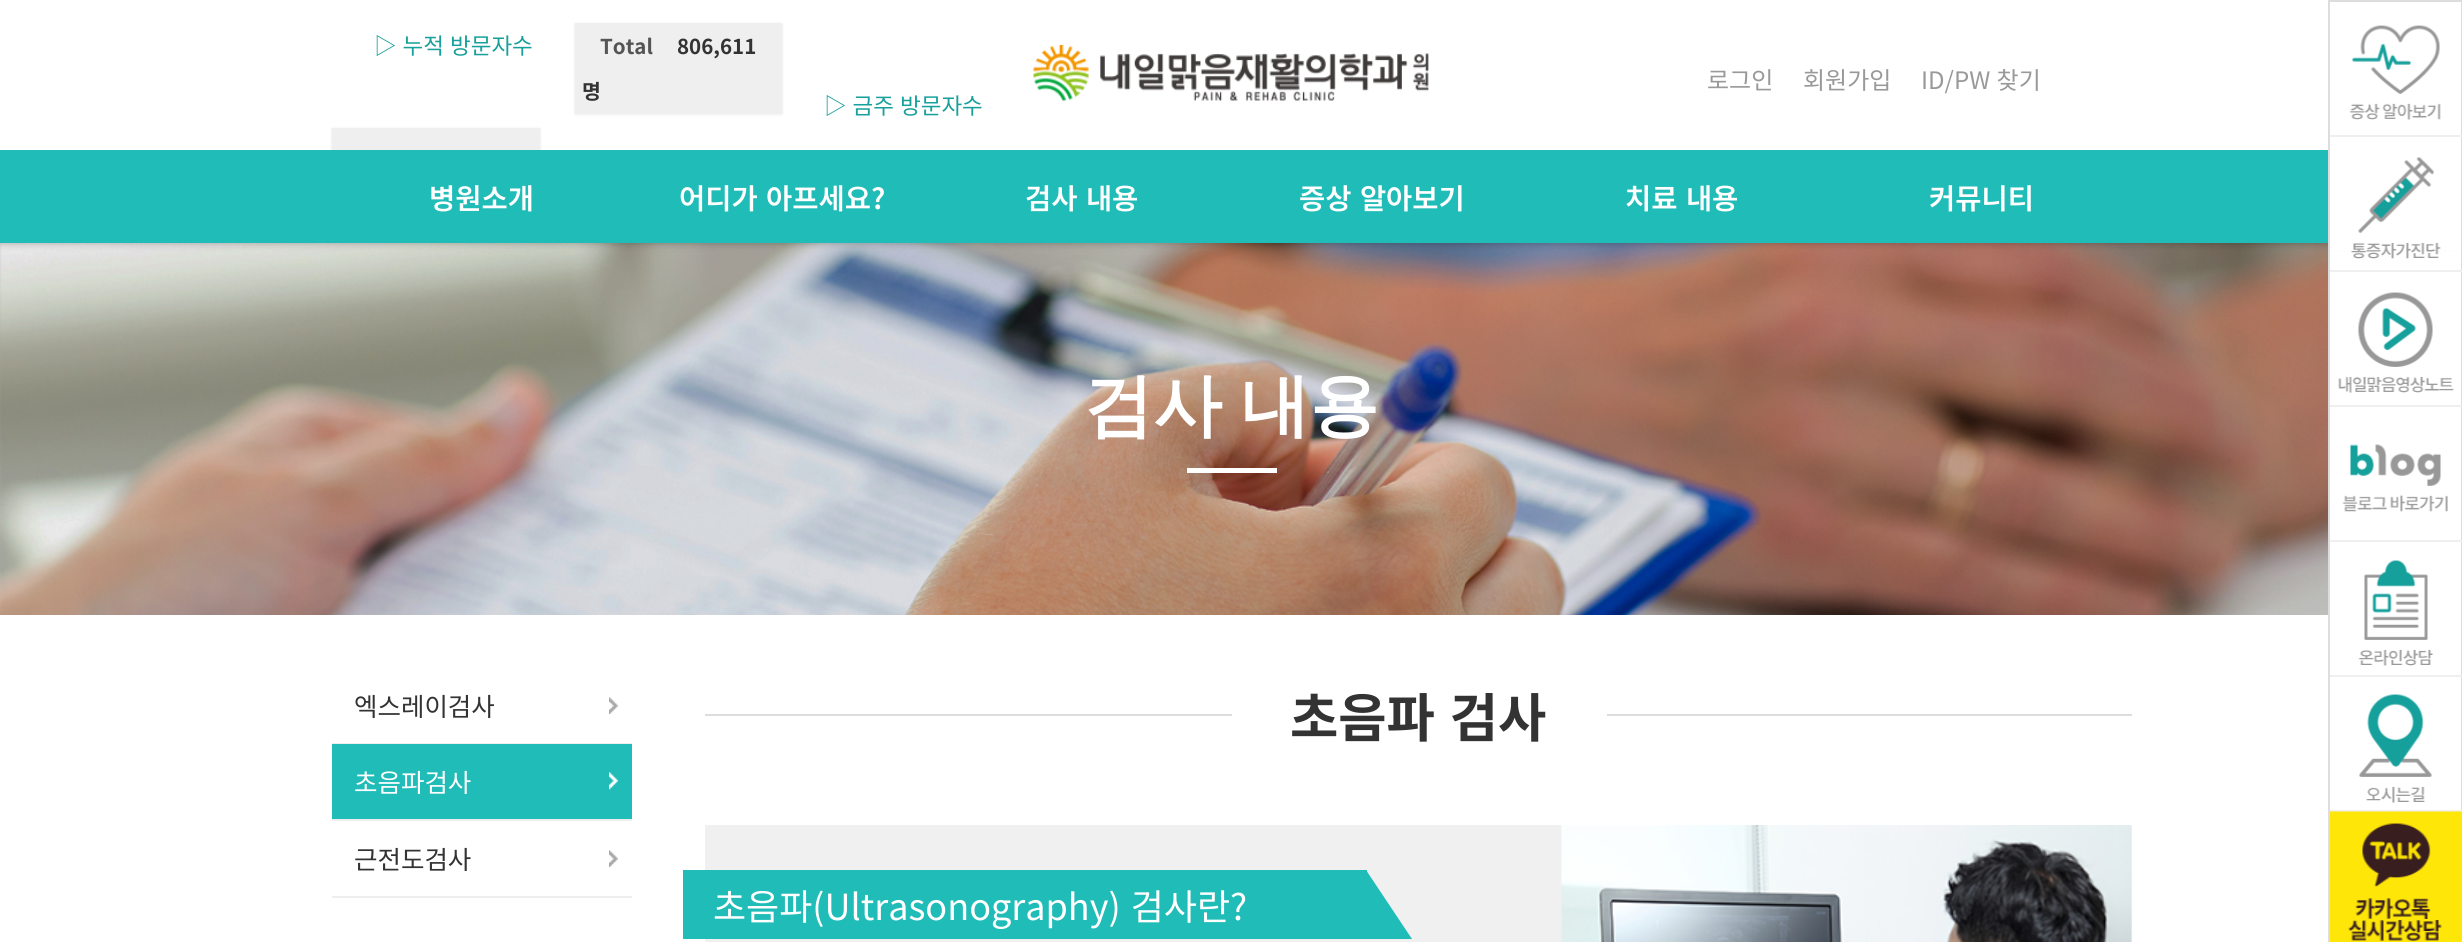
import math
import cairo

surface = cairo.ImageSurface(cairo.FORMAT_RGB24, 2462, 942)
c = cairo.Context(surface)
options = cairo.FontOptions()
options.set_hint_metrics(cairo.HINT_METRICS_OFF)
options.set_hint_style(cairo.HINT_STYLE_NONE)
c.set_font_options(options)
c.set_miter_limit(4)
def C(code):
 c.set_source_rgb(*(v / 255 for v in bytes.fromhex(code[-6:])))
def F(family, size, italic, bold):
 c.select_font_face(family, cairo.FONT_SLANT_ITALIC if italic else cairo.FONT_SLANT_NORMAL, cairo.FONT_WEIGHT_BOLD if bold else cairo.FONT_WEIGHT_NORMAL)
 c.set_font_size(size)
def T(x, y, s):
 c.move_to(x, y)
 c.show_text(s)
def L(x, y, s, letter, word):
 c.move_to(x, y)
 for ch in s:
  c.show_text(ch)
  c.rel_move_to(letter + word * (ch == ' '), 0)
def R(x, y, w, h):
 c.rectangle(x, y, w, h)
 c.fill()
def Q(x, y, w, h, r):
 c.new_sub_path()
 for i, (u, v) in enumerate([(x + w - r, y + h - r), (x + r, y + h - r), (x + r, y + r), (x + w - r, y + r)]):
  c.arc(u, v, r, i * math.pi / 2, (i + 1) * math.pi / 2)
 c.close_path()
def S(x, y, w, h, r, blur, alpha):
 c.push_group_with_content(cairo.CONTENT_ALPHA)
 c.set_operator(cairo.OPERATOR_SOURCE)
 for i in range(15, -16, -2):
  e = blur * i / 6
  if min(w, h) + 2 * e > 0:
   c.set_source_rgba(0, 0, 0, alpha * math.erfc((i - 1) / 8.5) / 2)
   Q(x - e, y - e, w + 2 * e, h + 2 * e, max(0, min(r + e + blur * .6, min(w, h) / 2 + e)))
   c.fill()
 c.mask(c.pop_group())
def I(path, x, y, w, h):
 c.save()
 c.set_source_surface(cairo.ImageSurface.create_from_png(path), x, y)
 c.rectangle(x, y, w, h)
 c.fill()
 c.restore()
C('ffffff')
c.paint()
I('9.png',0,243,2328,372)
C('000000')
S(0,0,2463,243,0,4,.3)
C('ffffff')
R(0,0,2328,150)
F('Noto Sans KR',22.5,0,0)
C('17a09c')
L(374,54,'▷ 누적 방문자수',0,1)
C('000000')
S(575,24,207,90,0,1.5,.1)
C('efefef')
R(575,23,207,90)
F('Noto Sans KR',20.5,0,1)
C('555555')
T(600,54,'Total')
C('333333')
T(677,54,'806,611')
T(582,99,'명')
F('Noto Sans KR',22.5,0,0)
C('17a09c')
L(824,114,'▷ 금주 방문자수',0,1)
C('000000')
S(332,129,208,45,0,1.5,.1)
C('efefef')
R(332,128,208,22)
I('1.png',1033,45,396,56)
F('Noto Sans KR',24,0,0)
C('999999')
T(1707,89,'로그인')
T(1803,89,'회원가입')
L(1921,89,'ID/PW 찾기',0,1)
C('20bcb8')
R(0,150,2328,93)
F('Noto Sans KR SemiBold',28.5,0,0)
C('ffffff')
T(429,209,'병원소개')
L(679,209,'어디가 아프세요?',0,2)
L(1025,209,'검사 내용',0,2)
L(1299,209,'증상 알아보기',0,2)
L(1625,209,'치료 내용',0,2)
T(1929,209,'커뮤니티')
R(2330,2,131,248)
c.rectangle(2329,1,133,940)
C('dddddd')
c.stroke()
C('efefef')
R(2330,135,132,2)
I('2.png',2349,25,92,95)
R(2330,270,132,2)
I('3.png',2351,157,90,102)
R(2330,405,132,2)
I('4.png',2338,292,116,101)
R(2330,540,132,2)
I('5.png',2342,444,106,68)
R(2330,675,132,2)
I('6.png',2358,560,75,106)
R(2330,810,132,2)
I('7.png',2359,694,73,109)
I('8.png',2330,811,132,131)
F('WenQuanYi Zen Hei',69,0,1)
C('ffffff')
L(1084,429,'검사 내용',0,-2)
R(1187,468,90,5)
C('eeeeee')
R(332,743,300,1)
I('10.png',609,697,9,17)
F('Noto Sans KR',25.5,0,0)
C('333333')
T(354,716,'엑스레이검사')
C('eeeeee')
R(332,819,300,2)
C('20bcb8')
R(332,744,300,75)
I('11.png',609,772,9,18)
C('ffffff')
T(354,792,'초음파검사')
C('eeeeee')
R(332,896,300,2)
I('10.png',609,850,9,17)
C('333333')
T(354,869,'근전도검사')
C('dddddd')
R(705,714,1427,2)
C('ffffff')
R(1232,714,375,2)
F('Noto Sans KR',52.5,0,1)
C('333333')
L(1290,737,'초음파 검사',0,3)
C('f0f0f0')
R(705,825,1427,117)
C('20bcb8')
R(683,870,684,69)
F('Noto Sans KR',36,0,0)
C('ffffff')
L(713,920,'초음파(Ultrasonography) 검사란?',0,2)
C('20bcb8')
c.new_path()
c.move_to(1412,939)
c.line_to(1366,939)
c.line_to(1366,870)
c.close_path()
c.fill()
I('12.png',1561,825,571,117)
surface.write_to_png('o.png')
